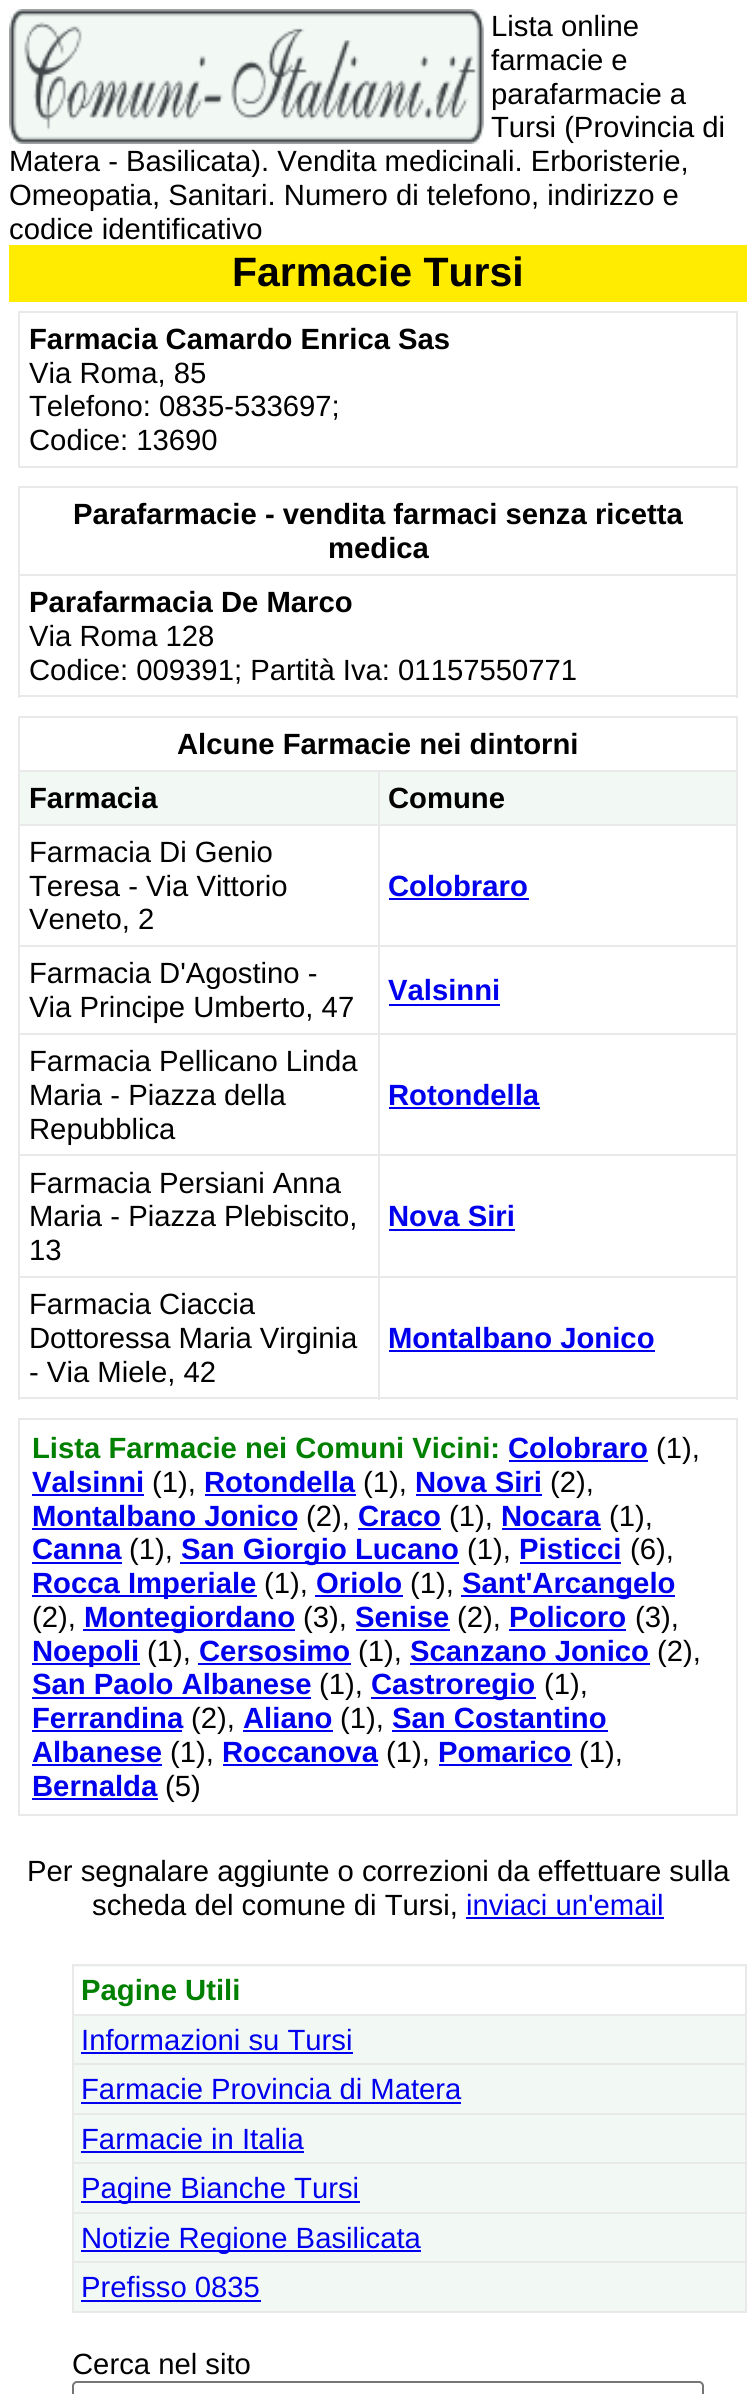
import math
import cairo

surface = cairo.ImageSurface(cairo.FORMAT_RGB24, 756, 2394)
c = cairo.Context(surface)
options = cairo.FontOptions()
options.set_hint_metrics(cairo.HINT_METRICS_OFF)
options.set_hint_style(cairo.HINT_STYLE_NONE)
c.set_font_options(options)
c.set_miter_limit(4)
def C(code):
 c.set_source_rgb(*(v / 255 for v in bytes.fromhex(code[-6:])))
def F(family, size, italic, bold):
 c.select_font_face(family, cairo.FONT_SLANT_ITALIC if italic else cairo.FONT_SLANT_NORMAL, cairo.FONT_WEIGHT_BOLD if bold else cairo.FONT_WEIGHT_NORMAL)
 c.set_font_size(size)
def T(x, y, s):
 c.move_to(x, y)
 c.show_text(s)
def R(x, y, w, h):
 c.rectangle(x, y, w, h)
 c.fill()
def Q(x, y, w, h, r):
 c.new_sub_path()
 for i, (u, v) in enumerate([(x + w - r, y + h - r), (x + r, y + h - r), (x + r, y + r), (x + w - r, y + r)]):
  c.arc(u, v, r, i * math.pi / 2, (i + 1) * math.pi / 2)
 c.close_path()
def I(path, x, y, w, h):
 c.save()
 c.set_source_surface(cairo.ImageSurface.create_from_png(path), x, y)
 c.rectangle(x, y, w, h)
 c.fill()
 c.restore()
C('ffffff')
c.paint()
I('1.png',9,9,475,135)
F('Liberation Sans',29.25,0,0)
C('000000')
T(491,36,'Lista online')
T(491,70,'farmacie e')
T(491,104,'parafarmacie a')
T(491,137,'Tursi (Provincia di')
T(9,171,'Matera - Basilicata). Vendita medicinali. Erboristerie,')
T(9,205,'Omeopatia, Sanitari. Numero di telefono, indirizzo e')
T(9,239,'codice identificativo')
C('ffec00')
R(9,245,738,57)
F('Liberation Sans',41,0,1)
C('000000')
T(232,286,'Farmacie Tursi')
C('e9e9e9')
R(18,311,720,2)
R(736,311,2,157)
R(18,466,720,2)
R(18,311,2,157)
F('Liberation Sans',29.25,0,1)
C('000000')
T(29,349,'Farmacia Camardo Enrica Sas')
F('Liberation Sans',29.25,0,0)
T(29,383,'Via Roma, 85')
T(29,416,'Telefono: 0835-533697;')
T(29,450,'Codice: 13690')
C('e9e9e9')
R(18,486,720,2)
R(736,486,2,212)
R(18,695,720,2)
R(18,486,2,212)
F('Liberation Sans',29.25,0,1)
C('000000')
T(73,524,'Parafarmacie - vendita farmaci senza ricetta')
T(328,558,'medica')
C('e9e9e9')
R(18,574,720,2)
C('000000')
T(29,612,'Parafarmacia De Marco')
F('Liberation Sans',29.25,0,0)
T(29,646,'Via Roma 128')
T(29,680,'Codice: 009391; Partità Iva: 01157550771')
C('e9e9e9')
R(18,716,720,2)
R(736,716,2,684)
R(18,1397,720,2)
R(18,716,2,684)
F('Liberation Sans',29.25,0,1)
C('000000')
T(177,754,'Alcune Farmacie nei dintorni')
C('f2f8f4')
R(20,772,358,52)
C('e9e9e9')
R(378,770,360,2)
R(378,824,360,2)
R(378,945,360,2)
R(378,1033,360,2)
R(378,1154,360,2)
R(378,1276,360,2)
R(378,1276,2,124)
R(18,1276,362,2)
R(378,1154,2,124)
R(18,1154,362,2)
R(378,1033,2,124)
R(18,1033,362,2)
R(378,945,2,90)
R(18,945,362,2)
R(378,824,2,123)
R(18,824,362,2)
R(378,770,2,56)
R(18,770,362,2)
C('000000')
T(29,808,'Farmacia')
C('f2f8f4')
R(380,772,356,52)
C('000000')
T(388,808,'Comune')
F('Liberation Sans',29.25,0,0)
T(29,862,'Farmacia Di Genio')
T(29,896,'Teresa - Via Vittorio')
T(29,929,'Veneto, 2')
F('Liberation Sans',29.25,0,1)
C('0000ee')
T(388,896,'Colobraro')
R(389,898,140,2)
F('Liberation Sans',29.25,0,0)
C('000000')
T(29,983,'Farmacia D\'Agostino -')
T(29,1017,'Via Principe Umberto, 47')
F('Liberation Sans',29.25,0,1)
C('0000ee')
T(388,1000,'Valsinni')
R(389,1004,111,2)
F('Liberation Sans',29.25,0,0)
C('000000')
T(29,1071,'Farmacia Pellicano Linda')
T(29,1105,'Maria - Piazza della')
T(29,1139,'Repubblica')
F('Liberation Sans',29.25,0,1)
C('0000ee')
T(388,1105,'Rotondella')
R(389,1107,151,2)
F('Liberation Sans',29.25,0,0)
C('000000')
T(29,1193,'Farmacia Persiani Anna')
T(29,1226,'Maria - Piazza Plebiscito,')
T(29,1260,'13')
F('Liberation Sans',29.25,0,1)
C('0000ee')
T(388,1226,'Nova Siri')
R(389,1229,126,2)
F('Liberation Sans',29.25,0,0)
C('000000')
T(29,1314,'Farmacia Ciaccia')
T(29,1348,'Dottoressa Maria Virginia')
T(29,1382,'- Via Miele, 42')
F('Liberation Sans',29.25,0,1)
C('0000ee')
T(388,1348,'Montalbano Jonico')
R(389,1350,266,2)
C('e9e9e9')
R(18,1418,720,2)
R(736,1418,2,398)
R(18,1814,720,2)
R(18,1418,2,398)
C('008000')
T(32,1458,'Lista Farmacie nei Comuni Vicini:')
C('0000ee')
T(508,1458,'Colobraro')
R(509,1460,139,2)
F('Liberation Sans',29.25,0,0)
C('000000')
T(656,1458,'(1),')
F('Liberation Sans',29.25,0,1)
C('0000ee')
T(32,1492,'Valsinni')
R(32,1494,112,2)
F('Liberation Sans',29.25,0,0)
C('000000')
T(152,1492,'(1),')
F('Liberation Sans',29.25,0,1)
C('0000ee')
T(204,1492,'Rotondella')
R(205,1494,151,2)
F('Liberation Sans',29.25,0,0)
C('000000')
T(363,1492,'(1),')
F('Liberation Sans',29.25,0,1)
C('0000ee')
T(415,1492,'Nova Siri')
R(416,1494,126,2)
F('Liberation Sans',29.25,0,0)
C('000000')
T(550,1492,'(2),')
F('Liberation Sans',29.25,0,1)
C('0000ee')
T(32,1526,'Montalbano Jonico')
R(32,1528,265,2)
F('Liberation Sans',29.25,0,0)
C('000000')
T(306,1526,'(2),')
F('Liberation Sans',29.25,0,1)
C('0000ee')
T(358,1526,'Craco')
R(358,1528,83,2)
F('Liberation Sans',29.25,0,0)
C('000000')
T(449,1526,'(1),')
F('Liberation Sans',29.25,0,1)
C('0000ee')
T(501,1526,'Nocara')
R(502,1528,99,2)
F('Liberation Sans',29.25,0,0)
C('000000')
T(609,1526,'(1),')
F('Liberation Sans',29.25,0,1)
C('0000ee')
T(32,1559,'Canna')
R(32,1562,90,2)
F('Liberation Sans',29.25,0,0)
C('000000')
T(129,1559,'(1),')
C('0000ee')
R(180,1562,279,2)
F('Liberation Sans',29.25,0,1)
T(181,1559,'San Giorgio Lucano')
F('Liberation Sans',29.25,0,0)
C('000000')
T(467,1559,'(1),')
F('Liberation Sans',29.25,0,1)
C('0000ee')
T(519,1559,'Pisticci')
R(520,1562,101,2)
F('Liberation Sans',29.25,0,0)
C('000000')
T(630,1559,'(6),')
C('0000ee')
R(32,1595,225,2)
F('Liberation Sans',29.25,0,1)
T(32,1593,'Rocca Imperiale')
F('Liberation Sans',29.25,0,0)
C('000000')
T(264,1593,'(1),')
F('Liberation Sans',29.25,0,1)
C('0000ee')
T(316,1593,'Oriolo')
R(315,1595,88,2)
F('Liberation Sans',29.25,0,0)
C('000000')
T(410,1593,'(1),')
C('0000ee')
R(461,1595,214,2)
F('Liberation Sans',29.25,0,1)
T(462,1593,'Sant\'Arcangelo')
F('Liberation Sans',29.25,0,0)
C('000000')
T(32,1627,'(2),')
C('0000ee')
R(83,1629,212,2)
F('Liberation Sans',29.25,0,1)
T(84,1627,'Montegiordano')
F('Liberation Sans',29.25,0,0)
C('000000')
T(303,1627,'(3),')
F('Liberation Sans',29.25,0,1)
C('0000ee')
T(355,1627,'Senise')
R(356,1629,94,2)
F('Liberation Sans',29.25,0,0)
C('000000')
T(457,1627,'(2),')
F('Liberation Sans',29.25,0,1)
C('0000ee')
T(509,1627,'Policoro')
R(509,1629,117,2)
F('Liberation Sans',29.25,0,0)
C('000000')
T(635,1627,'(3),')
C('0000ee')
R(32,1663,108,2)
F('Liberation Sans',29.25,0,1)
T(32,1661,'Noepoli')
F('Liberation Sans',29.25,0,0)
C('000000')
T(147,1661,'(1),')
F('Liberation Sans',29.25,0,1)
C('0000ee')
T(199,1661,'Cersosimo')
R(198,1663,153,2)
F('Liberation Sans',29.25,0,0)
C('000000')
T(358,1661,'(1),')
F('Liberation Sans',29.25,0,1)
C('0000ee')
T(410,1661,'Scanzano Jonico')
R(410,1663,240,2)
F('Liberation Sans',29.25,0,0)
C('000000')
T(657,1661,'(2),')
F('Liberation Sans',29.25,0,1)
C('0000ee')
T(32,1694,'San Paolo Albanese')
R(32,1697,279,2)
F('Liberation Sans',29.25,0,0)
C('000000')
T(319,1694,'(1),')
C('0000ee')
R(371,1697,165,2)
F('Liberation Sans',29.25,0,1)
T(371,1694,'Castroregio')
F('Liberation Sans',29.25,0,0)
C('000000')
T(544,1694,'(1),')
F('Liberation Sans',29.25,0,1)
C('0000ee')
T(32,1728,'Ferrandina')
R(32,1730,150,2)
F('Liberation Sans',29.25,0,0)
C('000000')
T(191,1728,'(2),')
F('Liberation Sans',29.25,0,1)
C('0000ee')
T(243,1728,'Aliano')
R(243,1730,90,2)
F('Liberation Sans',29.25,0,0)
C('000000')
T(340,1728,'(1),')
F('Liberation Sans',29.25,0,1)
C('0000ee')
T(392,1728,'San Costantino')
R(392,1730,216,2)
T(32,1762,'Albanese')
R(32,1764,130,2)
F('Liberation Sans',29.25,0,0)
C('000000')
T(170,1762,'(1),')
F('Liberation Sans',29.25,0,1)
C('0000ee')
T(222,1762,'Roccanova')
R(223,1764,155,2)
F('Liberation Sans',29.25,0,0)
C('000000')
T(386,1762,'(1),')
F('Liberation Sans',29.25,0,1)
C('0000ee')
T(438,1762,'Pomarico')
R(439,1764,133,2)
F('Liberation Sans',29.25,0,0)
C('000000')
T(579,1762,'(1),')
F('Liberation Sans',29.25,0,1)
C('0000ee')
T(32,1796,'Bernalda')
R(32,1798,126,2)
F('Liberation Sans',29.25,0,0)
C('000000')
T(165,1796,'(5)')
T(27,1881,'Per segnalare aggiunte o correzioni da effettuare sulla')
T(92,1915,'scheda del comune di Tursi,')
C('0000ee')
T(466,1915,'inviaci un\'email')
R(466,1917,198,2)
C('f2f8f4')
R(74,1966,671,345)
C('e9e9e9')
R(72,1964,675,2)
R(745,1964,2,349)
R(72,2311,675,2)
R(72,1964,2,349)
C('ffffff')
R(74,1967,671,47)
F('Liberation Sans',29.25,0,1)
C('008000')
T(81,2000,'Pagine Utili')
C('e9e9e9')
R(72,2014,675,2)
F('Liberation Sans',29.25,0,0)
C('0000ee')
T(81,2050,'Informazioni su Tursi')
R(81,2052,272,2)
C('e9e9e9')
R(72,2063,675,2)
C('0000ee')
T(81,2099,'Farmacie Provincia di Matera')
R(81,2102,380,2)
C('e9e9e9')
R(72,2113,675,2)
C('0000ee')
T(81,2149,'Farmacie in Italia')
R(81,2151,223,2)
C('e9e9e9')
R(72,2162,675,2)
C('0000ee')
R(81,2201,279,2)
T(81,2198,'Pagine Bianche Tursi')
C('e9e9e9')
R(72,2212,675,2)
C('0000ee')
R(81,2250,340,2)
T(81,2248,'Notizie Regione Basilicata')
C('e9e9e9')
R(72,2261,675,2)
C('0000ee')
T(81,2297,'Prefisso 0835')
R(81,2300,180,2)
C('000000')
T(72,2374,'Cerca nel sito')
Q(73,2382,630,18,4)
C('767676')
c.stroke()
surface.write_to_png('o.png')
